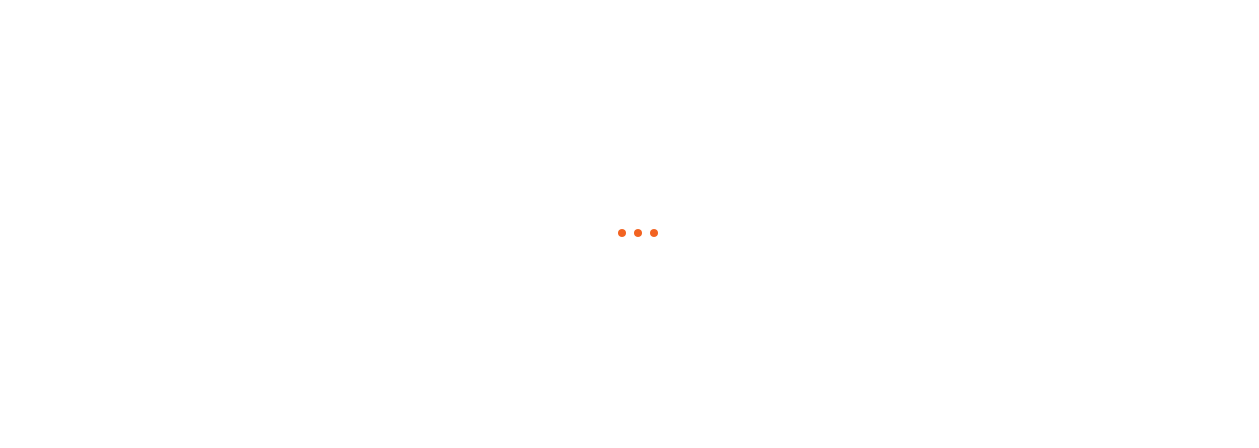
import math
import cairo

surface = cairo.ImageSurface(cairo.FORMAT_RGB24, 1259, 448)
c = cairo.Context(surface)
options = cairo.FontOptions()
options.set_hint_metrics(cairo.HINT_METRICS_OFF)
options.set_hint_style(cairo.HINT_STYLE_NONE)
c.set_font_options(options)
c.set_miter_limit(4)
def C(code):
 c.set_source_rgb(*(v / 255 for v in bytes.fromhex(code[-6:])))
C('ffffff')
c.paint()
C('f26321')
c.arc(622,233,4,0,2 * math.pi)
c.fill()
c.arc(638,233,4,0,2 * math.pi)
c.fill()
c.arc(654,233,4,0,2 * math.pi)
c.fill()
surface.write_to_png('o.png')
